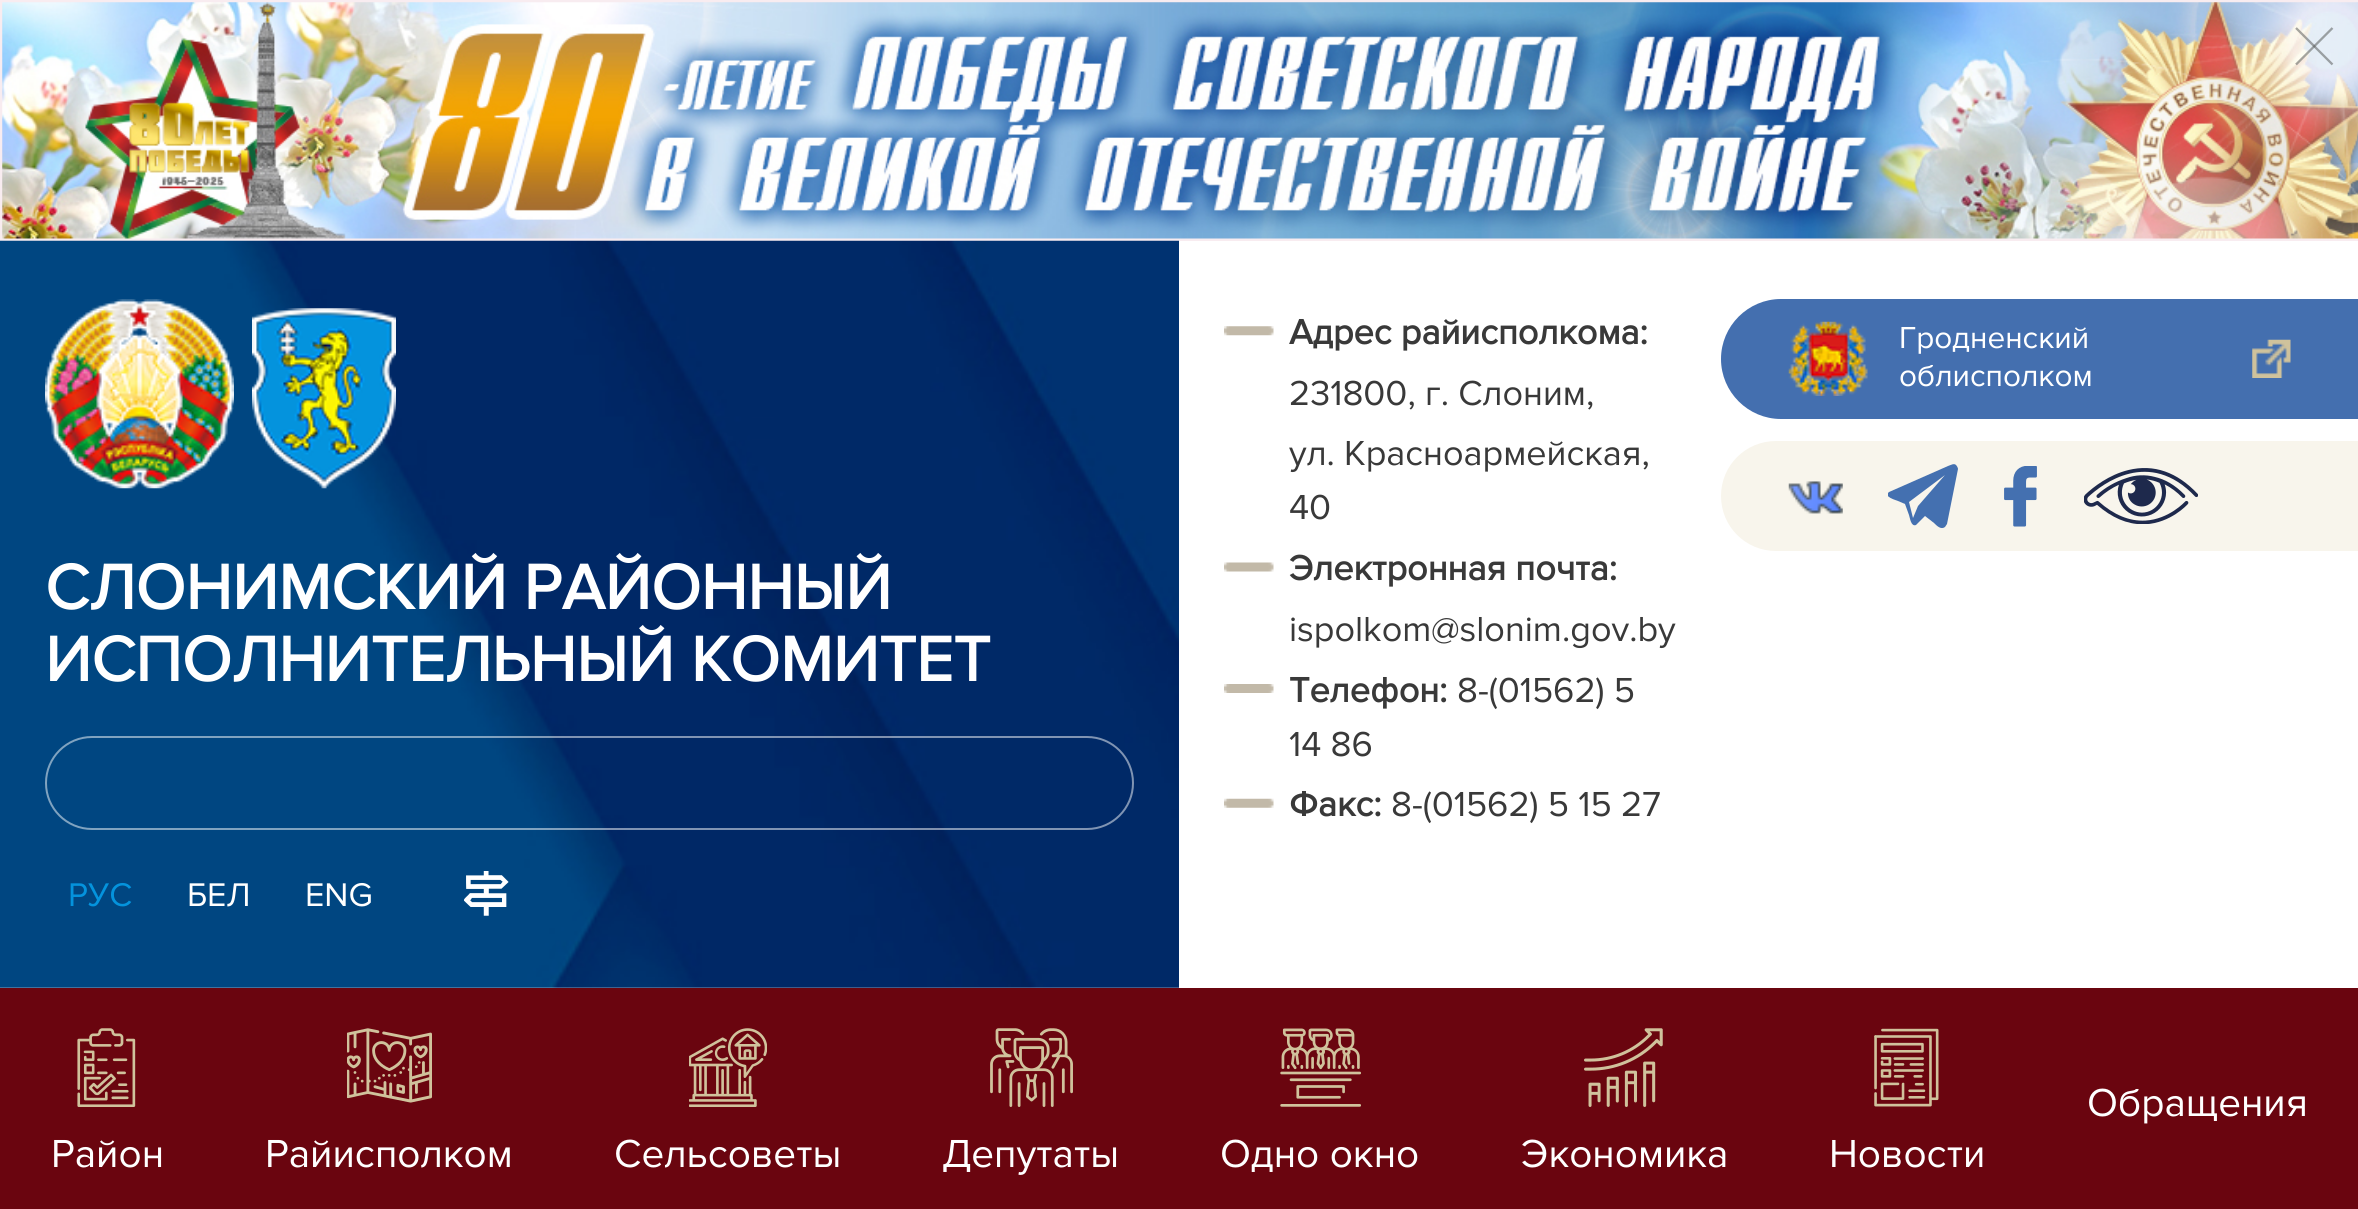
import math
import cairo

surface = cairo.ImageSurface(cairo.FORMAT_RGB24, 2358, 1209)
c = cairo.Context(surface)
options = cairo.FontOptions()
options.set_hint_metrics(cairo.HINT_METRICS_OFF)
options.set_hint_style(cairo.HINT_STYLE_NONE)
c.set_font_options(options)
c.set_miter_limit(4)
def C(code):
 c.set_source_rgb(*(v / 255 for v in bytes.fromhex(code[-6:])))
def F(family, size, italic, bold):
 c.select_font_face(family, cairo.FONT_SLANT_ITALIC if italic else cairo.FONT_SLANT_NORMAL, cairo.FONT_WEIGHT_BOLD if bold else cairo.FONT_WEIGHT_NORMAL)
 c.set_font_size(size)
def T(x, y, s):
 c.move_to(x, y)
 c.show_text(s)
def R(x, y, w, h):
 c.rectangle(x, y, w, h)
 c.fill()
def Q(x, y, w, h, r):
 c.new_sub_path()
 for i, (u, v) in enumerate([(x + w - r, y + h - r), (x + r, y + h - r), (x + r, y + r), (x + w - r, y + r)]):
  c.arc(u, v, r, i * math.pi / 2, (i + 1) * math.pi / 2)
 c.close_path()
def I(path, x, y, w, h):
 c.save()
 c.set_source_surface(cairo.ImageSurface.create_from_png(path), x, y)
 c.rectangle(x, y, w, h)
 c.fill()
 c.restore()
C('ffffff')
c.paint()
C('f8ecf0')
R(0,0,2358,241)
I('1.png',2,2,2356,237)
c.new_path()
c.move_to(2332.5,64.5)
c.line_to(2296,28)
c.set_source_rgba(0.31,0.314,0.31,0.5)
c.set_line_width(2.3)
c.stroke()
c.new_path()
c.move_to(2296,64.5)
c.line_to(2332.5,28)
c.stroke()
I('2.png',0,240,1179,748)
I('3.png',45,299,189,190)
I('4.png',252,308,144,181)
F('Proxima Nova',65.25,0,1)
C('ffffff')
T(45,609,'СЛОНИМСКИЙ РАЙОННЫЙ')
T(45,681,'ИСПОЛНИТЕЛЬНЫЙ КОМИТЕТ')
Q(46,737,1087,92,46)
c.set_source_rgba(1,1,1,0.5)
c.set_line_width(2)
c.stroke()
F('Proxima Nova',34,0,0)
C('0493dd')
T(68,906,'РУС')
C('ffffff')
T(187,906,'БЕЛ')
T(305,906,'ENG')
I('5.png',464,871,45,45)
I('6.png',1224,326,50,10)
F('Proxima Nova',36,0,1)
C('393939')
T(1289,344,'Адрес райисполкома:')
F('Proxima Nova',36,0,0)
T(1289,405,'231800, г. Слоним,')
T(1289,465,'ул. Красноармейская,')
T(1289,519,'40')
I('7.png',1224,562,50,10)
F('Proxima Nova',36,0,1)
T(1289,580,'Электронная почта:')
F('Proxima Nova',36,0,0)
T(1289,641,'ispolkom@slonim.gov.by')
I('8.png',1224,684,50,9)
F('Proxima Nova',36,0,1)
T(1289,702,'Телефон:')
F('Proxima Nova',36,0,0)
T(1457,702,'8-(01562) 5')
T(1289,756,'14 86')
I('9.png',1224,798,50,10)
F('Proxima Nova',36,0,1)
T(1289,816,'Факс:')
F('Proxima Nova',36,0,0)
T(1391,816,'8-(01562) 5 15 27')
C('446faf')
c.new_path()
c.move_to(1781,299)
c.line_to(2358,299)
c.line_to(2358,419)
c.line_to(1781,419)
c.curve_to(1748,419,1721,392,1721,359)
c.curve_to(1721,326,1748,299,1781,299)
c.close_path()
c.fill()
I('10.png',1788,321,80,75)
F('Proxima Nova',31.5,0,0)
C('ffffff')
T(1899,348,'Гродненский')
T(1899,386,'облисполком')
I('11.png',2252,339,39,39)
C('f8f5ec')
c.new_path()
c.move_to(1776,441)
c.line_to(2358,441)
c.line_to(2358,551)
c.line_to(1776,551)
c.curve_to(1745.5,551,1721,526.5,1721,496)
c.curve_to(1721,465.5,1745.5,441,1776,441)
c.close_path()
c.fill()
I('12.png',1788,481,55,33)
c.save()
c.rectangle(1888,464,70,65)
c.clip()
C('4470b0')
c.new_path()
c.move_to(1956,465)
c.curve_to(1954,463,1951,465,1948,466)
c.line_to(1889,492)
c.curve_to(1883,497,1896,500,1898,501)
c.line_to(1905,504)
c.line_to(1909,515)
c.curve_to(1910,518,1911,527,1916,525)
c.line_to(1925,516)
c.line_to(1934,523)
c.curve_to(1937,526,1941,530,1945,527)
c.line_to(1947,524)
c.line_to(1958,469)
c.curve_to(1958,468,1957,466,1956,465)
c.close_path()
c.move_to(1918,506)
c.line_to(1913,518)
c.line_to(1909,502)
c.line_to(1945,475)
c.close_path()
c.fill()
c.restore()
I('13.png',2004,466,33,61)
I('14.png',2084,468,114,56)
C('6a050f')
R(0,988,2358,221)
F('Proxima Nova',40.5,0,0)
C('ffffff')
T(2087,1116,'Обращения')
I('15.png',77,1028,59,79)
T(51,1167,'Район')
I('16.png',347,1028,85,75)
T(265,1167,'Райисполком')
I('17.png',689,1028,78,79)
T(614,1167,'Сельсоветы')
I('18.png',990,1028,83,79)
T(942,1167,'Депутаты')
I('19.png',1280,1028,81,79)
T(1220,1167,'Одно окно')
I('20.png',1584,1028,79,79)
T(1521,1167,'Экономика')
I('21.png',1874,1028,65,79)
T(1829,1167,'Новости')
surface.write_to_png('o.png')
